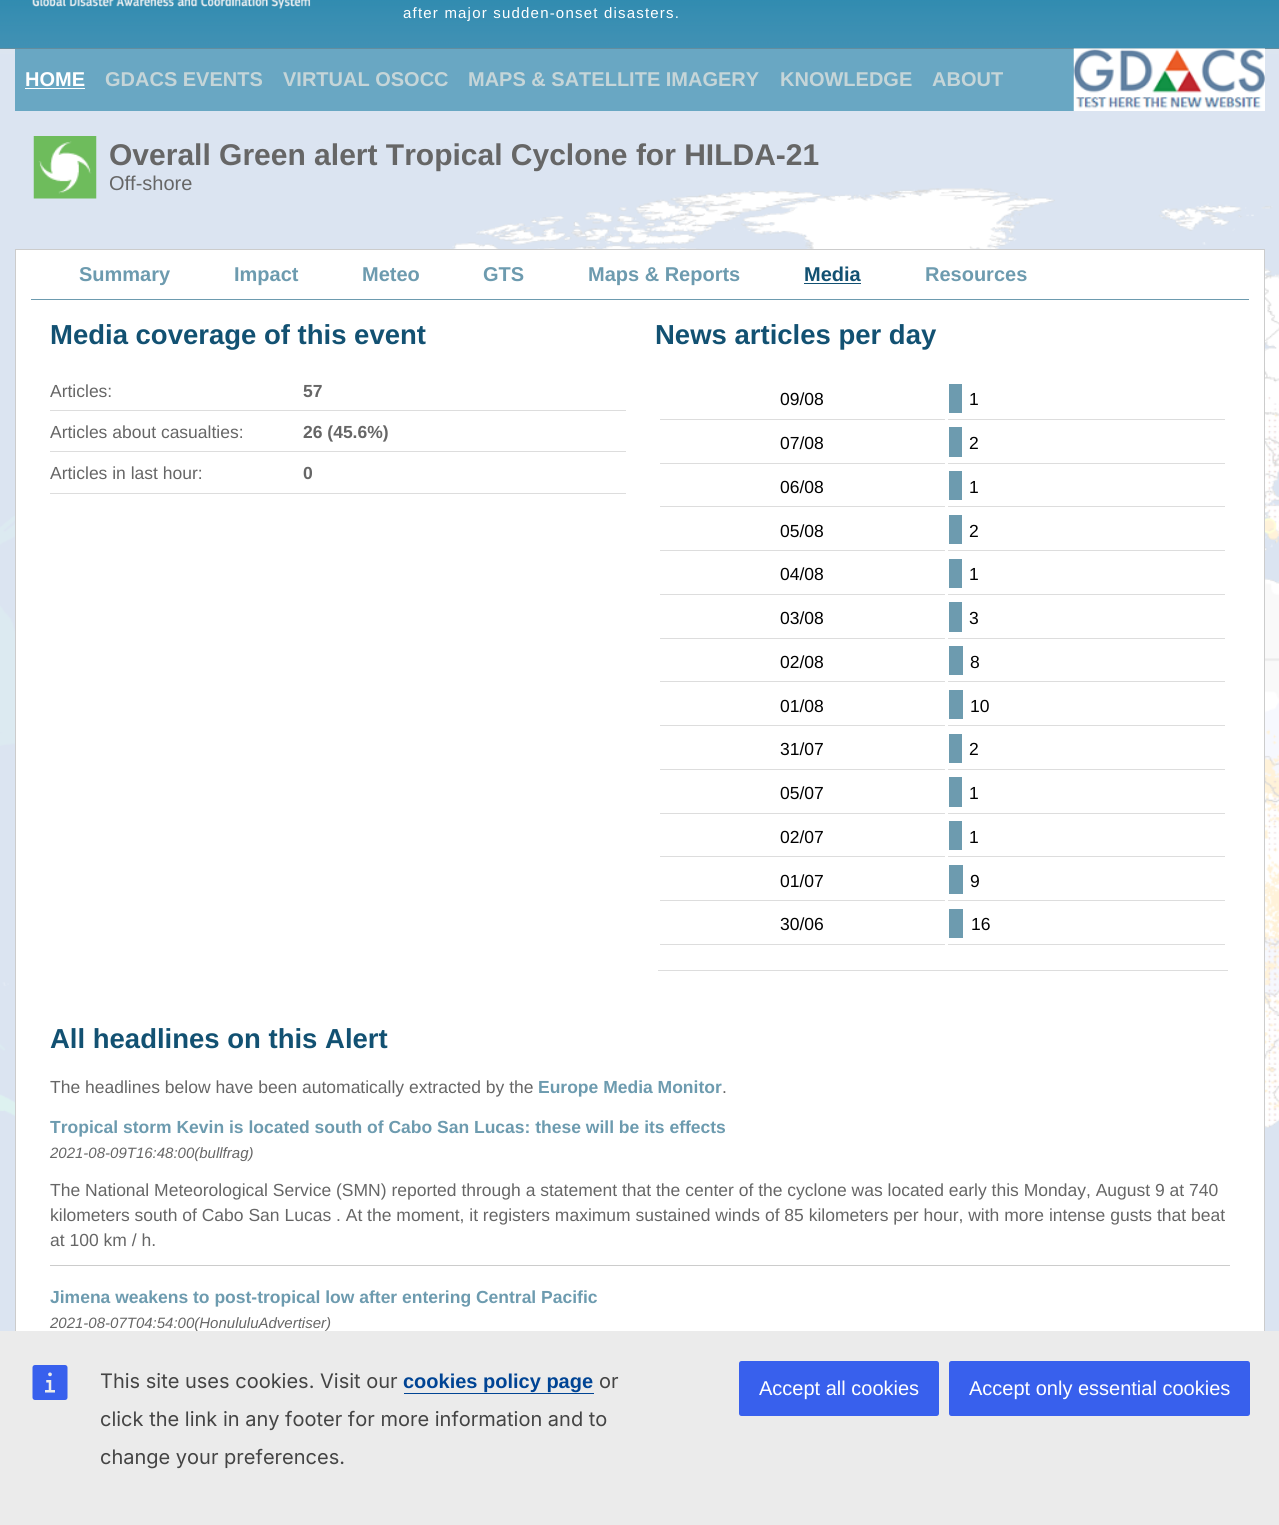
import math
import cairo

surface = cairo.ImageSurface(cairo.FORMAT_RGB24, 1279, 1525)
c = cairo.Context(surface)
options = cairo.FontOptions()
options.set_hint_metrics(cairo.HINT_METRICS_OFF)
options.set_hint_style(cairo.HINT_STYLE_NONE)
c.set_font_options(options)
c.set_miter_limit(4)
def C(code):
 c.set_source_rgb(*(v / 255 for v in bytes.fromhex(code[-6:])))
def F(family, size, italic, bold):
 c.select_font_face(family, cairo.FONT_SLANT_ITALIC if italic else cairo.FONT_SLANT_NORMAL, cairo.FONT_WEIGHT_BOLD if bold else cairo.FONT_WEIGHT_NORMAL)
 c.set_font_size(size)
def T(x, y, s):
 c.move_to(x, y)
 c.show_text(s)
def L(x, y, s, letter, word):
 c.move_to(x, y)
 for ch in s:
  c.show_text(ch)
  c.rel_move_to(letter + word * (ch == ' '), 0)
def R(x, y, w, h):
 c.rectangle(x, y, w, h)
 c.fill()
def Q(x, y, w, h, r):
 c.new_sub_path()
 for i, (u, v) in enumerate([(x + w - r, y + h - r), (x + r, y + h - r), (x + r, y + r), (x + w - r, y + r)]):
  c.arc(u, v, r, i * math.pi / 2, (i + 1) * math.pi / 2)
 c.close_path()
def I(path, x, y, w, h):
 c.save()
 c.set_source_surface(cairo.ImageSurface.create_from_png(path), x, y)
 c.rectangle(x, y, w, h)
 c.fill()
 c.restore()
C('ffffff')
c.paint()
I('1.png',0,49,1279,1282)
C('888888')
R(0,48,1279,1)
I('2.png',0,0,1279,49)
I('3.png',32,0,279,9)
F('Liberation Sans',15,0,0)
C('ffffff')
L(403,18,'after major sudden-onset disasters.',1.2,0)
C('69a7c3')
R(15,49,1059,62)
F('Liberation Sans',20,0,1)
C('ffffff')
T(25,86,'HOME')
R(25,88,60,1)
C('c5d5d8')
T(105,86,'GDACS EVENTS')
T(283,86,'VIRTUAL OSOCC')
T(468,86,'MAPS & SATELLITE IMAGERY')
T(780,86,'KNOWLEDGE')
T(932,86,'ABOUT')
I('4.png',1073,48,192,63)
I('5.png',33,136,64,63)
F('Liberation Sans',30,0,1)
C('666666')
T(109,165,'Overall Green alert Tropical Cyclone for HILDA-21')
F('Liberation Sans',20,0,0)
T(109,190,'Off-shore')
C('ffffff')
R(16,250,1248,1081)
C('cccccc')
R(15,249,1250,1)
R(1264,249,1,1082)
R(15,249,1,1082)
C('6d9baf')
R(31,299,1218,1)
F('Liberation Sans',20,0,1)
T(79,281,'Summary')
T(234,281,'Impact')
T(362,281,'Meteo')
T(483,281,'GTS')
T(588,281,'Maps & Reports')
C('125172')
T(804,281,'Media')
R(804,283,57,1)
C('6d9baf')
T(925,281,'Resources')
F('Liberation Sans',27.5,0,1)
C('125172')
T(50,344,'Media coverage of this event')
F('Liberation Sans',17.5,0,0)
C('666666')
T(50,397,'Articles:')
C('dddddd')
R(50,410,576,1)
F('Liberation Sans',17.5,0,1)
C('666666')
T(303,397,'57')
F('Liberation Sans',17.5,0,0)
T(50,438,'Articles about casualties:')
C('dddddd')
R(50,451,576,1)
F('Liberation Sans',17.5,0,1)
C('666666')
T(303,438,'26 (45.6%)')
F('Liberation Sans',17.5,0,0)
T(50,479,'Articles in last hour:')
C('dddddd')
R(50,493,576,1)
F('Liberation Sans',17.5,0,1)
C('666666')
T(303,479,'0')
F('Liberation Sans',27.5,0,1)
C('125172')
T(655,344,'News articles per day')
C('dddddd')
R(658,970,570,1)
R(660,419,285,1)
F('Liberation Sans',17.5,0,0)
C('000000')
T(780,405,'09/08')
C('dddddd')
R(948,419,277,1)
C('6d9baf')
R(949,384,13,29)
C('000000')
T(969,405,'1')
C('dddddd')
R(660,463,285,1)
C('000000')
T(780,449,'07/08')
C('dddddd')
R(948,463,277,1)
C('6d9baf')
R(949,427,13,30)
C('000000')
T(969,449,'2')
C('dddddd')
R(660,506,285,1)
C('000000')
T(780,493,'06/08')
C('dddddd')
R(948,506,277,1)
C('6d9baf')
R(949,471,13,29)
C('000000')
T(969,493,'1')
C('dddddd')
R(660,550,285,1)
C('000000')
T(780,537,'05/08')
C('dddddd')
R(948,550,277,1)
C('6d9baf')
R(949,515,13,29)
C('000000')
T(969,537,'2')
C('dddddd')
R(660,594,285,1)
C('000000')
T(780,580,'04/08')
C('dddddd')
R(948,594,277,1)
C('6d9baf')
R(949,559,13,29)
C('000000')
T(969,580,'1')
C('dddddd')
R(660,638,285,1)
C('000000')
T(780,624,'03/08')
C('dddddd')
R(948,638,277,1)
C('6d9baf')
R(949,602,13,30)
C('000000')
T(969,624,'3')
C('dddddd')
R(660,681,285,1)
C('000000')
T(780,668,'02/08')
C('dddddd')
R(948,681,277,1)
C('6d9baf')
R(949,646,14,29)
C('000000')
T(970,668,'8')
C('dddddd')
R(660,725,285,1)
C('000000')
T(780,712,'01/08')
C('dddddd')
R(948,725,277,1)
C('6d9baf')
R(949,690,14,29)
C('000000')
T(970,712,'10')
C('dddddd')
R(660,769,285,1)
C('000000')
T(780,755,'31/07')
C('dddddd')
R(948,769,277,1)
C('6d9baf')
R(949,734,13,29)
C('000000')
T(969,755,'2')
C('dddddd')
R(660,813,285,1)
C('000000')
T(780,799,'05/07')
C('dddddd')
R(948,813,277,1)
C('6d9baf')
R(949,777,13,30)
C('000000')
T(969,799,'1')
C('dddddd')
R(660,856,285,1)
C('000000')
T(780,843,'02/07')
C('dddddd')
R(948,856,277,1)
C('6d9baf')
R(949,821,13,29)
C('000000')
T(969,843,'1')
C('dddddd')
R(660,900,285,1)
C('000000')
T(780,887,'01/07')
C('dddddd')
R(948,900,277,1)
C('6d9baf')
R(949,865,14,29)
C('000000')
T(970,887,'9')
C('dddddd')
R(660,944,285,1)
C('000000')
T(780,930,'30/06')
C('dddddd')
R(948,944,277,1)
C('6d9baf')
R(949,909,14,29)
C('000000')
T(971,930,'16')
F('Liberation Sans',27.5,0,1)
C('125172')
T(50,1048,'All headlines on this Alert')
F('Liberation Sans',17.5,0,0)
C('666666')
T(50,1093,'The headlines below have been automatically extracted by the')
F('Liberation Sans',17.5,0,1)
C('6d9baf')
T(538,1093,'Europe Media Monitor')
F('Liberation Sans',17.5,0,0)
C('666666')
T(722,1093,'.')
C('cccccc')
R(50,1265,1180,1)
F('Liberation Sans',17.5,0,1)
C('6d9baf')
T(50,1133,'Tropical storm Kevin is located south of Cabo San Lucas: these will be its effects')
F('Liberation Sans',15,1,0)
C('666666')
T(50,1158,'2021-08-09T16:48:00(bullfrag)')
F('Liberation Sans',17.5,0,0)
T(50,1196,'The National Meteorological Service (SMN) reported through a statement that the center of the cyclone was located early this Monday, August 9 at 740')
T(50,1221,'kilometers south of Cabo San Lucas . At the moment, it registers maximum sustained winds of 85 kilometers per hour, with more intense gusts that beat')
T(50,1246,'at 100 km / h.')
F('Liberation Sans',17.5,0,1)
C('6d9baf')
T(50,1303,'Jimena weakens to post-tropical low after entering Central Pacific')
F('Liberation Sans',15,1,0)
C('666666')
T(50,1328,'2021-08-07T04:54:00(HonululuAdvertiser)')
C('ebebeb')
R(0,1331,1279,194)
I('6.png',32,1365,36,35)
F('Inter',20,0,0)
C('444444')
T(100,1388,'This site uses cookies. Visit our')
F('Liberation Sans',20,0,1)
C('004494')
T(403,1388,'cookies policy page')
R(404,1393,190,1)
F('Inter',20,0,0)
C('444444')
T(599,1388,'or')
T(100,1426,'click the link in any footer for more information and to')
T(100,1464,'change your preferences.')
C('3860ed')
Q(739,1361,200,55,2.5)
c.fill()
F('Liberation Sans',20,0,0)
C('ffffff')
T(759,1395,'Accept all cookies')
C('3860ed')
Q(949,1361,301,55,2.5)
c.fill()
C('ffffff')
T(969,1395,'Accept only essential cookies')
surface.write_to_png('o.png')
